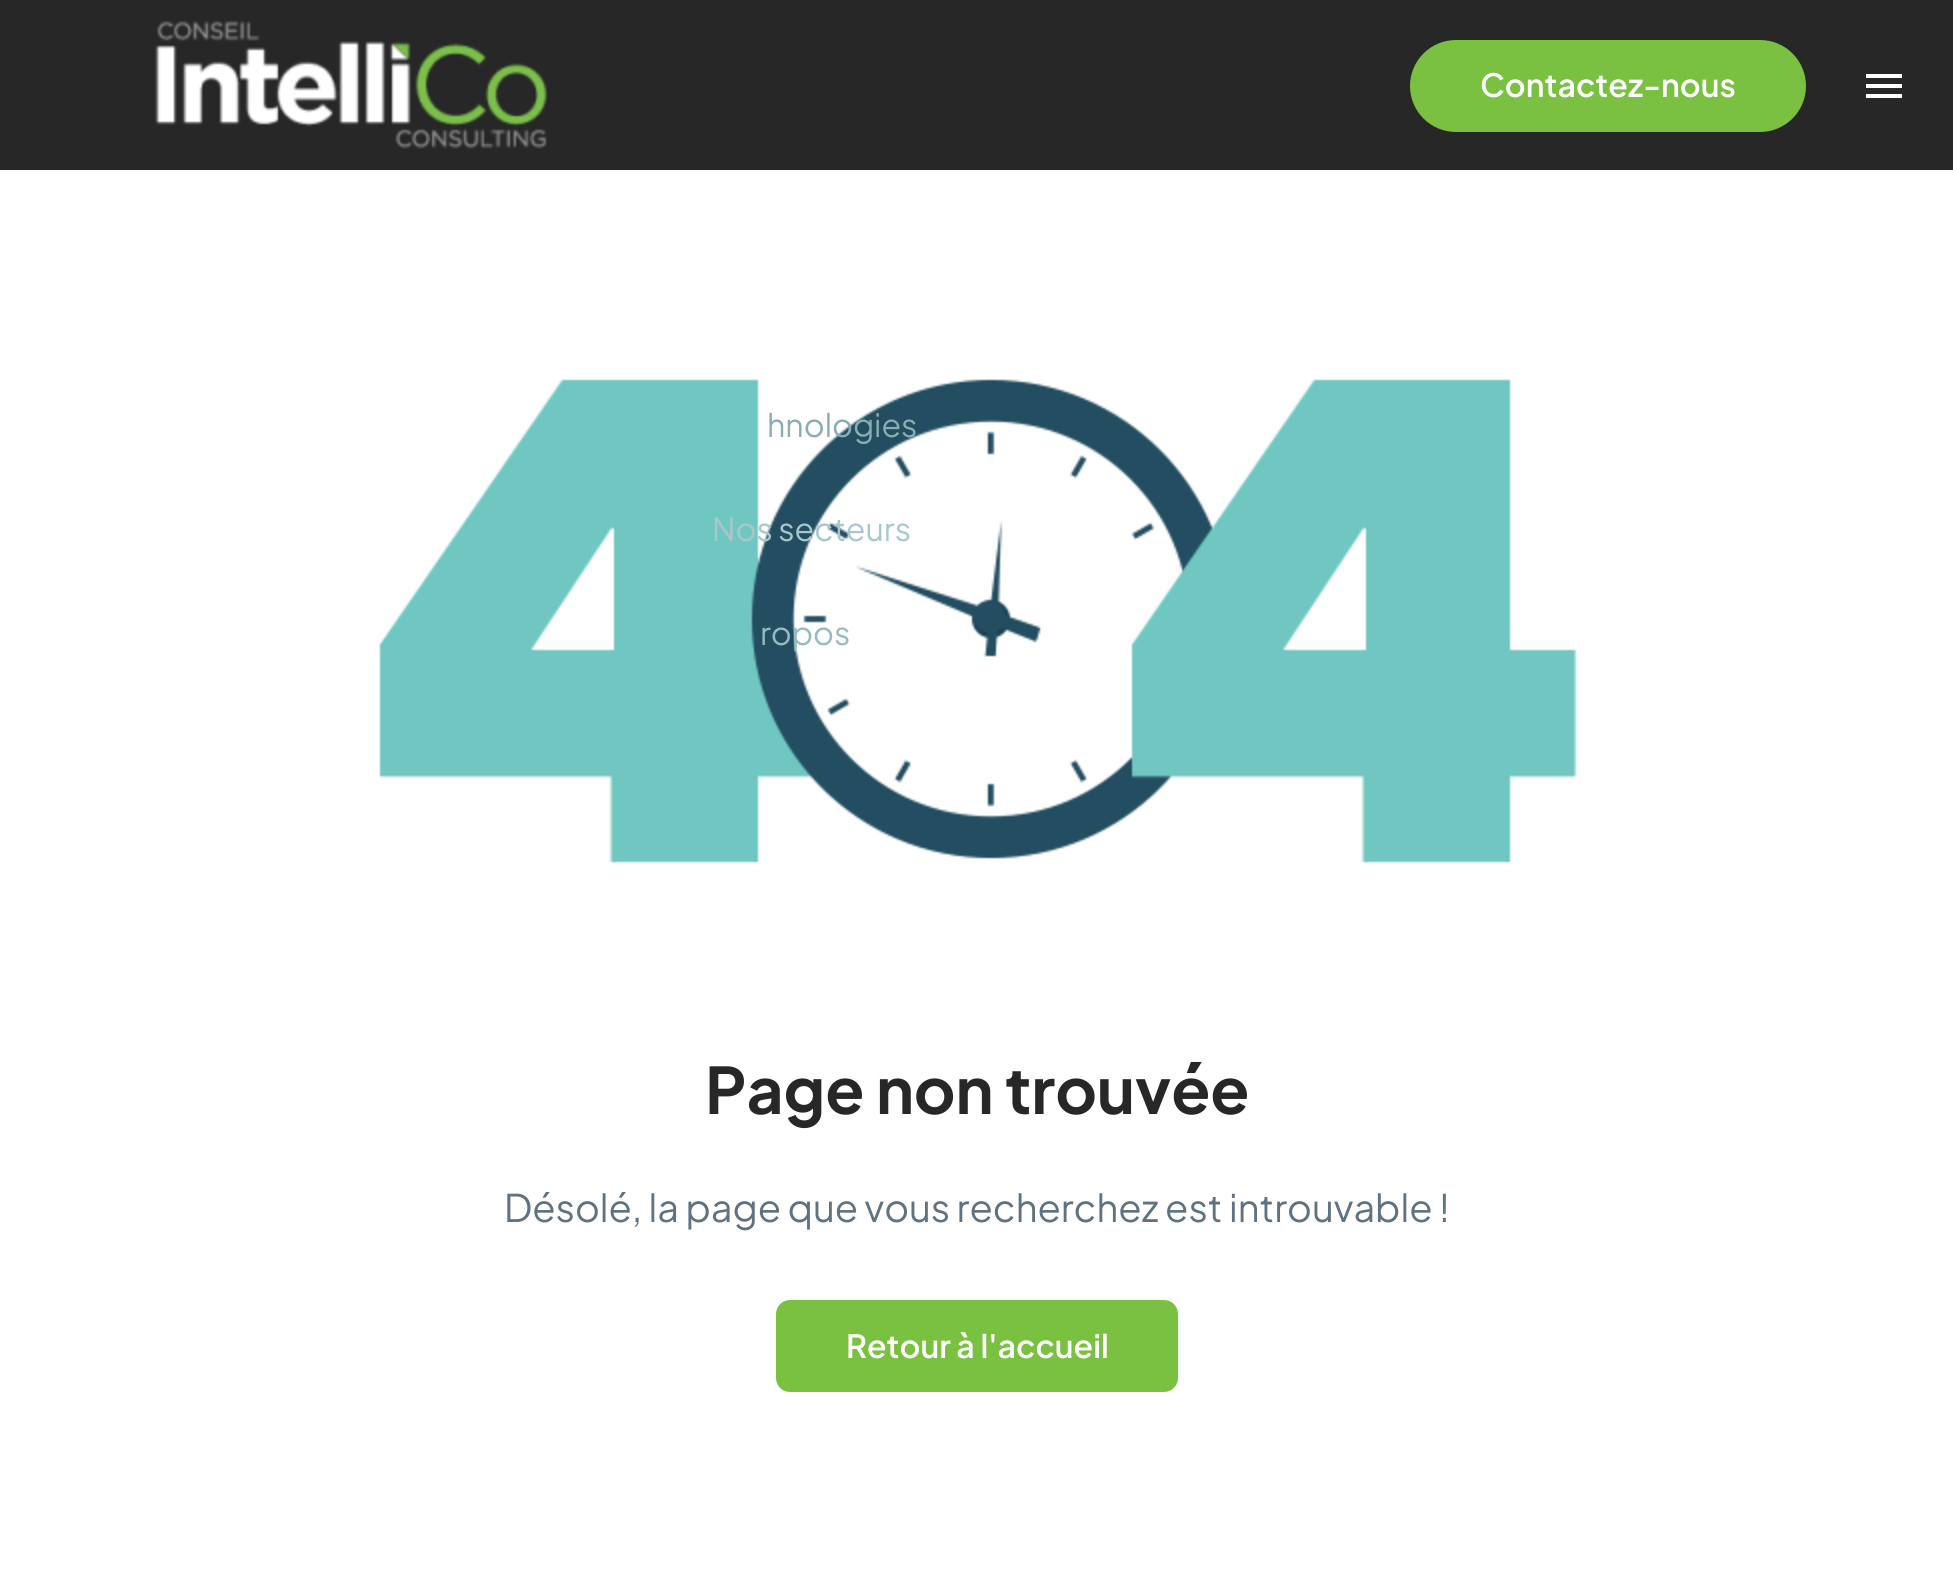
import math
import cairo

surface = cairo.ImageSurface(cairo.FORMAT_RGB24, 1953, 1585)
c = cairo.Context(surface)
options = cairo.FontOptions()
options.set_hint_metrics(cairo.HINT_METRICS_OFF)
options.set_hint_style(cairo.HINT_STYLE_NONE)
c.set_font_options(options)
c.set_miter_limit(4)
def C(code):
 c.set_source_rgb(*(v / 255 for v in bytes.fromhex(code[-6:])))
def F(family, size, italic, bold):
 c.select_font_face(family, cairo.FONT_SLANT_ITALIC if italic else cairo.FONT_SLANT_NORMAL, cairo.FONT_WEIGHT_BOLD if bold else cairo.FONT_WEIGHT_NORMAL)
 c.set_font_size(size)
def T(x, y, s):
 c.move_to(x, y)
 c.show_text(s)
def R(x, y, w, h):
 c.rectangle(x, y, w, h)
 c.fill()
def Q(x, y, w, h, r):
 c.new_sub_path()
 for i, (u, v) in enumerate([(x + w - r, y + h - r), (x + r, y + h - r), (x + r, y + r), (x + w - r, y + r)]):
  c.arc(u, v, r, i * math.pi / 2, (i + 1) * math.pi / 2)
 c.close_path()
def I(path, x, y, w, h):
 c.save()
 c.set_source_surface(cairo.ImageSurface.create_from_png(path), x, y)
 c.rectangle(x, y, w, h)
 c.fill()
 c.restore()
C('ffffff')
c.paint()
C('272727')
R(0,0,1953,170)
I('1.png',155,20,393,129)
C('7ac142')
Q(1410,40,396,92,46)
c.fill()
F('Plus Jakarta Sans SemiBold',32,0,0)
C('ffffff')
T(1480,97,'Contactez-nous')
R(1866,74,36,4)
R(1866,84,36,4)
R(1866,94,36,4)
I('2.png',379,379,1198,484)
F('Plus Jakarta Sans',32,0,0)
C('89adb3')
T(767,437,'hnologies')
C('a8c7ca')
T(712,541,'Nos secteurs')
C('94bbbf')
T(760,645,'ropos')
F('Plus Jakarta Sans',64,0,1)
C('272727')
T(705,1114,'Page non trouvée')
F('Plus Jakarta Sans',38,0,0)
C('5f727f')
T(504,1222,'Désolé, la page que vous recherchez est introuvable !')
C('7ac142')
Q(776,1300,402,92,14)
c.fill()
F('Plus Jakarta Sans SemiBold',32,0,0)
C('ffffff')
T(846,1358,'Retour à l\'accueil')
surface.write_to_png('o.png')
